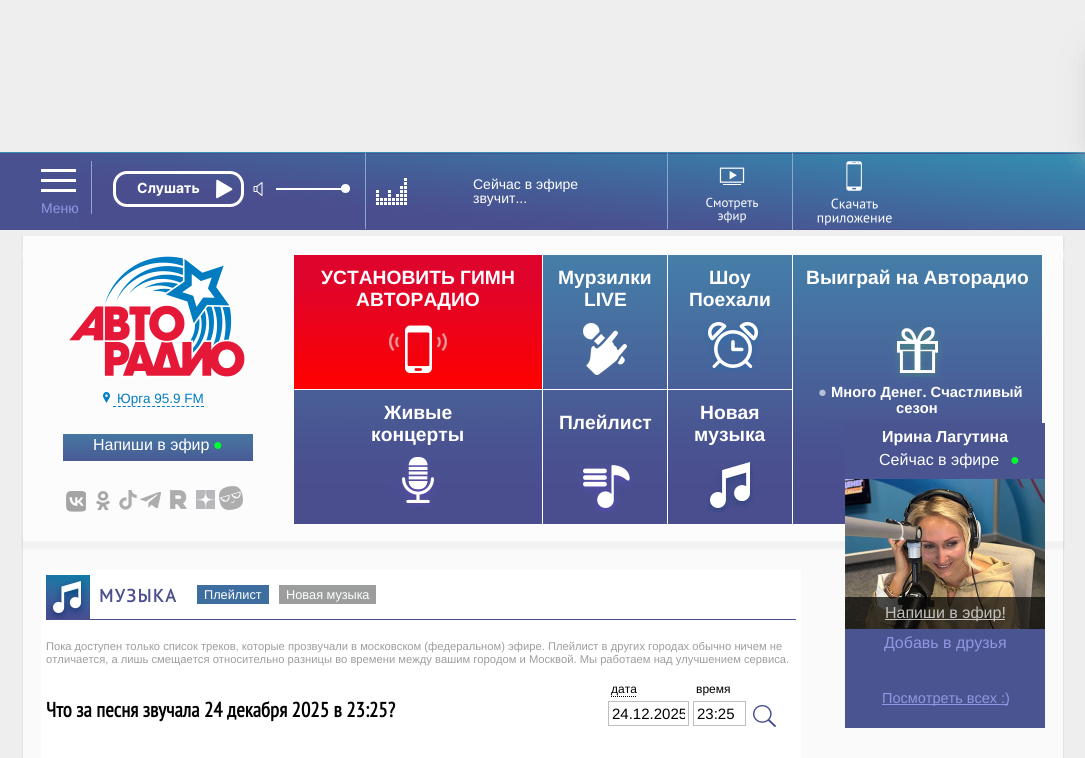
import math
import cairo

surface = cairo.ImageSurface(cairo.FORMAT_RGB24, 1085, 758)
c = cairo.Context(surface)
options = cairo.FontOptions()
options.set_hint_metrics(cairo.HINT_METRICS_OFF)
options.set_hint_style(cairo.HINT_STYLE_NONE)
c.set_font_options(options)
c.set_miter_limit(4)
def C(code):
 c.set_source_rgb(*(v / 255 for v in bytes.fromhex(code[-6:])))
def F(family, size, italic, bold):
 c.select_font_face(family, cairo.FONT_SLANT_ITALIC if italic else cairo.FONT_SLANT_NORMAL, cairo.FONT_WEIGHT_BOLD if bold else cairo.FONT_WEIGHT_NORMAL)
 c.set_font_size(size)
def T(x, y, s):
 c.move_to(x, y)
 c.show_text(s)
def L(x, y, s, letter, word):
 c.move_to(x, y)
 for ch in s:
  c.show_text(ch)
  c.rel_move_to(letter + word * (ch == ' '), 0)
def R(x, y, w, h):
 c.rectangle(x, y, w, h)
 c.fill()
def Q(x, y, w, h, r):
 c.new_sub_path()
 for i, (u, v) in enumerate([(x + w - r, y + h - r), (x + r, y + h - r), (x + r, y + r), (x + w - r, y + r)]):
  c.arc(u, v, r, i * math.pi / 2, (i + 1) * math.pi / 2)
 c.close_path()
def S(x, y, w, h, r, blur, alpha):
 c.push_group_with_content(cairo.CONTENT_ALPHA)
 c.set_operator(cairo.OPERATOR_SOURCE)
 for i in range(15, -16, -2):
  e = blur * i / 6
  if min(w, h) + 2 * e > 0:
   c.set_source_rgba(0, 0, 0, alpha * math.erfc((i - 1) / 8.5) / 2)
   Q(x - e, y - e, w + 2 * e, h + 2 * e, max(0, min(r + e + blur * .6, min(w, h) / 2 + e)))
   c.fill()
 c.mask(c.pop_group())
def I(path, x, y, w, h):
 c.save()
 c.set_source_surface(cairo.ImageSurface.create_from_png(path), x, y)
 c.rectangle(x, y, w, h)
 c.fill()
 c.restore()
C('eeeeee')
c.paint()
C('495190')
R(0,153,1085,77)
I('1.png',79,154,1006,75)
C('8ba9c6')
R(667,152,1,77)
R(365,152,1,77)
C('3390b2')
R(0,152,1085,1)
C('8ba9c6')
R(91,161,1,53)
I('2.png',113,171,131,36)
I('3.png',253,182,10,14)
C('ffffff')
R(276,188,65,2)
c.arc(345.5,188.5,4.5,0,2 * math.pi)
c.fill()
I('4.png',376,178,31,27)
F('Liberation Sans',14,0,0)
T(473,189,'Сейчас в эфире')
T(473,203,'звучит...')
C('8ba9c6')
R(792,153,1,77)
I('5.png',706,167,52,56)
I('6.png',817,161,75,65)
I('7.png',41,169,35,23)
C('9196e0')
T(41,213,'Меню')
C('d2d2d2')
S(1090,45,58,112,16,15.5,1)
I('8.png',21,236,1044,315)
I('9.png',69,256,176,121)
I('10.png',294,255,748,269)
gradient = cairo.LinearGradient(418,255,418,389)
gradient.add_color_stop_rgba(.18,0.875,0.016,0.173,1)
gradient.add_color_stop_rgba(1,0.996,0,0,1)
c.set_source(gradient)
R(294,255,248,134)
C('ffffff')
R(293,389,499,1)
R(293,255,1,135)
F('Liberation Sans',19.25,0,1)
T(321,284,'УСТАНОВИТЬ ГИМН')
T(356,306,'АВТОРАДИО')
I('11.png',389,325,58,48)
R(542,255,1,135)
T(558,284,'Мурзилки')
T(584,306,'LIVE')
I('12.png',583,323,44,52)
R(667,255,1,135)
T(709,284,'Шоу')
T(689,306,'Поехали')
I('13.png',696,321,68,51)
R(792,524,53,1)
R(792,255,1,270)
T(806,284,'Выиграй на Авторадио')
I('14.png',893,327,52,50)
F('Liberation Sans',14.75,0,1)
C('b6c1d6')
T(818,397,'●')
C('ffffff')
T(831,397,'Много Денег. Счастливый')
T(896,413,'сезон')
R(293,524,499,1)
R(293,390,1,135)
F('Liberation Sans',19.25,0,1)
T(384,419,'Живые')
T(371,441,'концерты')
I('15.png',390,456,55,51)
R(542,390,1,135)
T(559,429,'Плейлист')
I('16.png',578,464,55,48)
R(667,390,1,135)
T(700,419,'Новая')
T(694,441,'музыка')
I('17.png',707,462,47,50)
I('18.png',103,392,7,11)
F('Liberation Sans',13.5,0,0)
C('017cc0')
T(117,403,'Юрга 95.9 FM')
c.new_path()
c.move_to(113,406.5)
c.line_to(204,406.5)
c.set_line_width(1)
c.set_dash([3,1.89])
c.stroke()
gradient = cairo.LinearGradient(158,434,158,461)
gradient.add_color_stop_rgba(0,0.275,0.463,0.635,1)
gradient.add_color_stop_rgba(1,0.286,0.357,0.584,1)
c.set_source(gradient)
R(63,434,190,27)
F('Liberation Sans',16,0,0)
C('ffffff')
T(93,450,'Напиши в эфир')
C('00ff30')
T(213,450,'●')
I('19.png',66,491,20,21)
I('20.png',96,491,14,19)
I('21.png',119,490,18,20)
I('22.png',140,492,21,16)
I('23.png',170,490,17,19)
I('24.png',196,490,19,19)
I('25.png',219,486,24,24)
I('26.png',22,540,1042,218)
C('ffffff')
R(41,570,760,188)
C('4a4f8e')
R(46,619,750,1)
I('27.png',46,575,44,44)
F('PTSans',18,0,1)
L(99,602,'МУЗЫКА',1.5,0)
C('3e6e9f')
R(197,585,72,19)
F('Liberation Sans',12.75,0,0)
C('ffffff')
T(204,599,'Плейлист')
C('9c9d9d')
R(279,585,97,19)
C('ffffff')
T(286,599,'Новая музыка')
F('Liberation Sans',11.2,0,0)
C('9c9d9d')
T(46,650,'Пока доступен только список треков, которые прозвучали в московском (федеральном) эфире. Плейлист в других городах обычно ничем не')
T(46,663,'отличается, а лишь смещается относительно разницы во времени между вашим городом и Москвой. Мы работаем над улучшением сервиса.')
F('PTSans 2',20.8,0,1)
C('000000')
T(46,717,'Что за песня звучала 24 декабря 2025 в 23:25?')
F('Liberation Sans',12,0,0)
T(611,693,'дата')
c.new_path()
c.move_to(611,696.5)
c.line_to(637,696.5)
c.set_dash([1,1])
c.stroke()
c.rectangle(608.5,701.5,80,24)
C('bebebe')
c.set_dash([])
c.stroke()
c.save()
c.rectangle(612,705,73,17)
c.clip()
F('Liberation Sans',15,0,0)
C('000000')
T(612,719,'24.12.2025')
c.restore()
C('000000')
T(696,693,'время')
c.rectangle(693.5,701.5,52,24)
C('bebebe')
c.stroke()
F('Liberation Sans',15,0,0)
C('000000')
T(697,719,'23:25')
I('28.png',753,705,23,22)
C('495491')
R(845,423,200,305)
F('Liberation Sans',16,0,1)
C('ffffff')
T(882,442,'Ирина Лагутина')
F('Liberation Sans',16,0,0)
T(879,465,'Сейчас в эфире')
C('00ff30')
T(1010,465,'●')
I('29.png',845,479,200,150)
c.set_source_rgba(0,0,0,0.7)
R(845,597,200,32)
c.set_source_rgba(1,1,1,0.7)
R(885,619,120,1)
C('c2c0bd')
T(885,618,'Напиши в эфир!')
C('9196e0')
T(884,648,'Добавь в друзья')
R(882,704,126,1)
F('Liberation Sans',14.5,0,0)
T(882,703,'Посмотреть всех :)')
surface.write_to_png('o.png')
